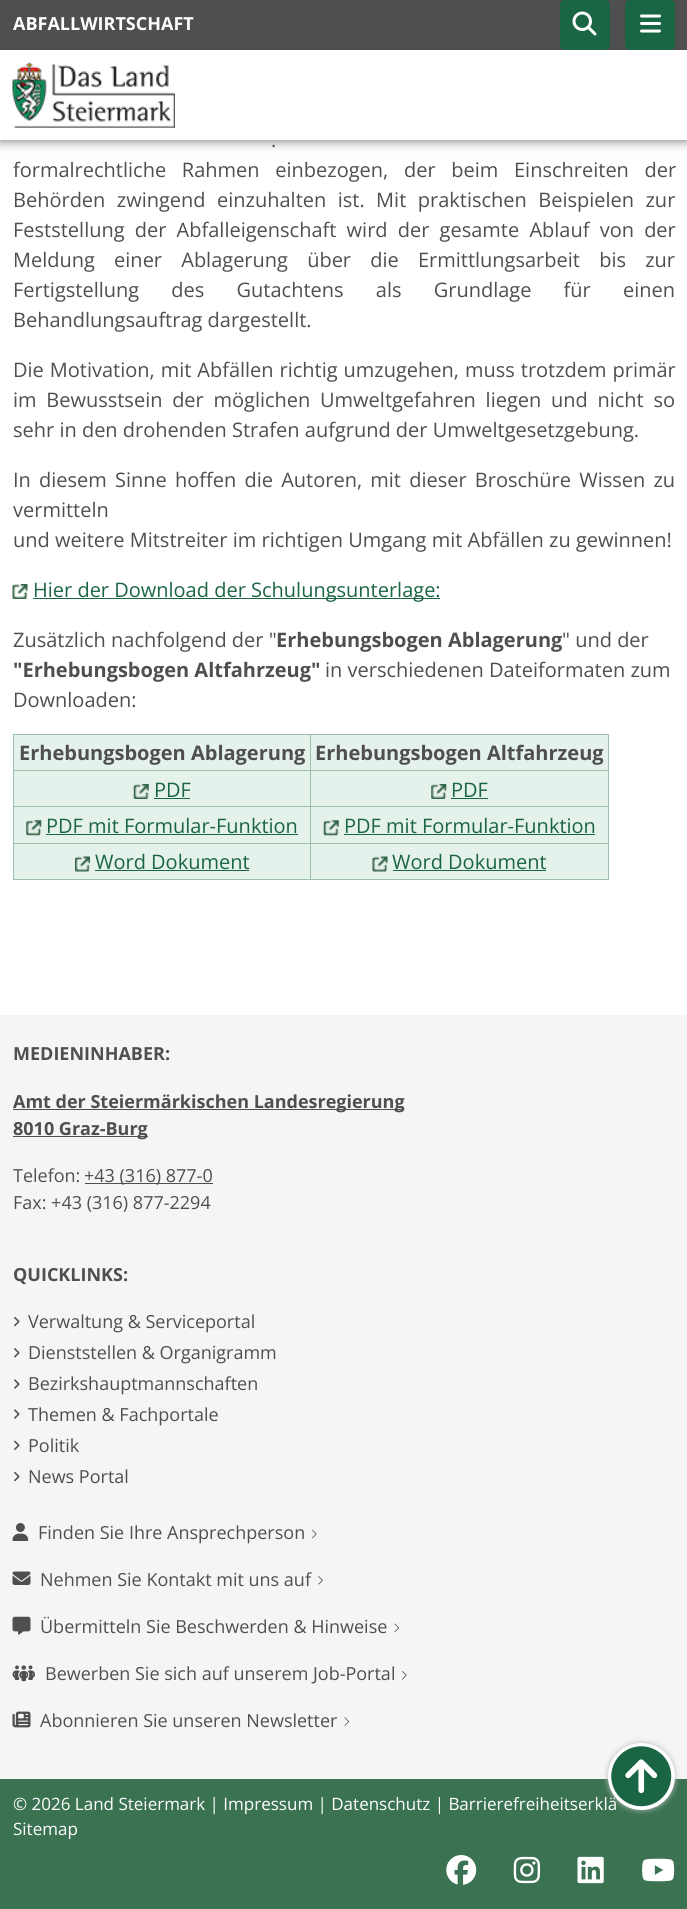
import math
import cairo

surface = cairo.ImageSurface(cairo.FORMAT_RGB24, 687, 1909)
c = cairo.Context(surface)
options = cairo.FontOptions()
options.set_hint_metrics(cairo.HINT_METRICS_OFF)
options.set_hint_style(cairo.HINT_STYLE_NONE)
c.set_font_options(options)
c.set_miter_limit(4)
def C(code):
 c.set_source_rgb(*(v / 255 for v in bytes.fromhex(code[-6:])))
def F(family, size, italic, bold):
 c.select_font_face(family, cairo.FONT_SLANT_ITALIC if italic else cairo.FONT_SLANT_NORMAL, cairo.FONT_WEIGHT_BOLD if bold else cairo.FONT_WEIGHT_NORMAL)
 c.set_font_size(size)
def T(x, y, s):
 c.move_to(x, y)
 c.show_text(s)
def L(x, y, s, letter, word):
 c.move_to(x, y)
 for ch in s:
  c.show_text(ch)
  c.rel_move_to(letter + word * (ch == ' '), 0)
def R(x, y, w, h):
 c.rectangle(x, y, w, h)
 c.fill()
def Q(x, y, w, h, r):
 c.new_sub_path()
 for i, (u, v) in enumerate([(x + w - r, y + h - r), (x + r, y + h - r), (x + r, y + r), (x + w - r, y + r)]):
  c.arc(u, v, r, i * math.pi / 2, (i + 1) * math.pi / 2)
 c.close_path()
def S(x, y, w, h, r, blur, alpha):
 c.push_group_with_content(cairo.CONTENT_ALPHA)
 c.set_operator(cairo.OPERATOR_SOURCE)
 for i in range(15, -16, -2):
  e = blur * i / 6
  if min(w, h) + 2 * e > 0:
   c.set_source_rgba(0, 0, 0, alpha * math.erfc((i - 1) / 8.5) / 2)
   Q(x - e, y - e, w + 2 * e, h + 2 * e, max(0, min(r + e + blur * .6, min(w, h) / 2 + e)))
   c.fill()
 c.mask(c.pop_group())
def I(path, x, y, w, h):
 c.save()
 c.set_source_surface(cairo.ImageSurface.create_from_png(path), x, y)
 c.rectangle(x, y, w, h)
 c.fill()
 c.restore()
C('ffffff')
c.paint()
C('656565')
S(0,0,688,140,0,6,1)
C('ffffff')
R(0,50,687,90)
C('4f4f4f')
R(0,0,687,50)
F('Open Sans',18,0,1)
C('ffffff')
T(13,30,'ABFALLWIRTSCHAFT')
C('1a6544')
Q(560,0,50,50,5)
c.fill()
I('1.png',572,11,25,25)
Q(625,0,50,50,5)
c.fill()
I('2.png',640,14,21,19)
I('3.png',12,62,163,66)
F('Open Sans',20,0,0)
C('4f4f4f')
L(271,147,'.',0,1)
L(13,177,'formalrechtliche Rahmen einbezogen, der beim Einschreiten der',0,10.5)
L(13,207,'Behörden zwingend einzuhalten ist. Mit praktischen Beispielen zur',0,6.25)
L(13,237,'Feststellung der Abfalleigenschaft wird der gesamte Ablauf von der',0,5)
L(13,267,'Meldung einer Ablagerung über die Ermittlungsarbeit bis zur',0,14)
L(13,297,'Fertigstellung des Gutachtens als Grundlage für einen',0,27)
T(13,327,'Behandlungsauftrag dargestellt.')
L(13,377,'Die Motivation, mit Abfällen richtig umzugehen, muss trotzdem primär',0,.75)
L(13,407,'im Bewusstsein der möglichen Umweltgefahren liegen und nicht so',0,4.5)
T(13,437,'sehr in den drohenden Strafen aufgrund der Umweltgesetzgebung.')
L(13,487,'In diesem Sinne hoffen die Autoren, mit dieser Broschüre Wissen zu',0,3)
T(13,517,'vermitteln')
T(13,547,'und weitere Mitstreiter im richtigen Umgang mit Abfällen zu gewinnen!')
I('4.png',12,584,16,15)
C('1a6544')
R(33,598,407,1)
T(33,597,'Hier der Download der Schulungsunterlage:')
C('4f4f4f')
T(13,647,'Zusätzlich nachfolgend der "')
F('Open Sans',20,0,1)
T(276,647,'Erhebungsbogen Ablagerung')
F('Open Sans',20,0,0)
T(562,647,'" und der')
F('Open Sans',20,0,1)
T(13,677,'"Erhebungsbogen Altfahrzeug"')
F('Open Sans',20,0,0)
T(325,677,'in verschiedenen Dateiformaten zum')
T(13,707,'Downloaden:')
C('e5f2eb')
R(14,735,594,144)
C('9ebfae')
R(13,734,596,1)
R(608,734,1,146)
R(13,879,596,1)
R(13,734,1,146)
F('Open Sans',20,0,1)
C('4f4f4f')
T(19,760,'Erhebungsbogen Ablagerung')
T(315,760,'Erhebungsbogen Altfahrzeug')
C('9ebfae')
R(13,770,596,1)
I('5.png',133,784,16,15)
F('Open Sans',20,0,0)
C('1a6544')
T(154,797,'PDF')
R(154,798,36,1)
I('6.png',431,784,16,15)
T(451,797,'PDF')
R(451,798,37,1)
C('9ebfae')
R(13,806,596,1)
I('7.png',26,820,16,16)
C('1a6544')
T(46,833,'PDF mit Formular-Funktion')
R(46,834,252,1)
I('8.png',323,820,16,16)
T(344,833,'PDF mit Formular-Funktion')
R(344,834,251,1)
C('9ebfae')
R(13,843,596,1)
I('9.png',75,856,15,16)
C('1a6544')
T(95,869,'Word Dokument')
R(95,870,154,1)
C('9ebfae')
R(310,734,1,146)
I('10.png',372,856,16,16)
C('1a6544')
T(392,869,'Word Dokument')
R(393,870,153,1)
C('f5f5f5')
R(0,1015,687,764)
F('Open Sans',18,0,1)
C('4f4f4f')
T(13,1060,'MEDIENINHABER:')
R(13,1109,391,1)
T(13,1108,'Amt der Steiermärkischen Landesregierung')
R(13,1136,135,1)
T(13,1135,'8010 Graz-Burg')
F('Open Sans',18,0,0)
T(13,1182,'Telefon:')
R(85,1183,128,1)
T(84,1182,'+43 (316) 877-0')
T(13,1209,'Fax: +43 (316) 877-2294')
F('Open Sans',18,0,1)
T(13,1281,'QUICKLINKS:')
I('11.png',14,1316,6,11)
F('Open Sans',18,0,0)
T(28,1328,'Verwaltung & Serviceportal')
I('12.png',14,1348,6,10)
T(28,1359,'Dienststellen & Organigramm')
I('13.png',14,1379,6,10)
T(28,1390,'Bezirkshauptmannschaften')
I('13.png',14,1409,6,10)
T(28,1421,'Themen & Fachportale')
I('14.png',14,1440,6,10)
T(28,1452,'Politik')
I('11.png',14,1471,6,11)
T(28,1483,'News Portal')
I('15.png',12,1523,17,18)
T(38,1539,'Finden Sie Ihre Ansprechperson')
I('16.png',312,1529,5,10)
I('17.png',12,1571,19,14)
T(40,1586,'Nehmen Sie Kontakt mit uns auf')
I('18.png',318,1576,5,9)
I('19.png',12,1616,19,19)
T(40,1633,'Übermitteln Sie Beschwerden & Hinweise')
I('20.png',394,1623,6,9)
I('21.png',12,1665,23,17)
T(45,1680,'Bewerben Sie sich auf unserem Job-Portal')
I('22.png',402,1671,5,9)
I('23.png',12,1711,19,17)
T(40,1727,'Abonnieren Sie unseren Newsletter')
I('24.png',344,1717,6,9)
C('3a7252')
R(0,1779,687,130)
F('Open Sans',17,0,0)
C('ffffff')
T(13,1810,'© 2026 Land Steiermark | Impressum | Datenschutz | Barrierefreiheitserklä')
T(13,1835,'Sitemap')
I('25.png',446,1855,31,30)
I('26.png',513,1856,27,28)
I('27.png',577,1856,27,28)
I('28.png',642,1858,33,24)
C('bcbcbc')
S(608,1743,67,67,33.5,3,1)
C('ffffff')
c.arc(641.5,1776.5,31.5,0,2 * math.pi)
c.fill_preserve()
c.set_line_width(4)
c.stroke()
I('29.png',611,1746,61,61)
surface.write_to_png('o.png')
